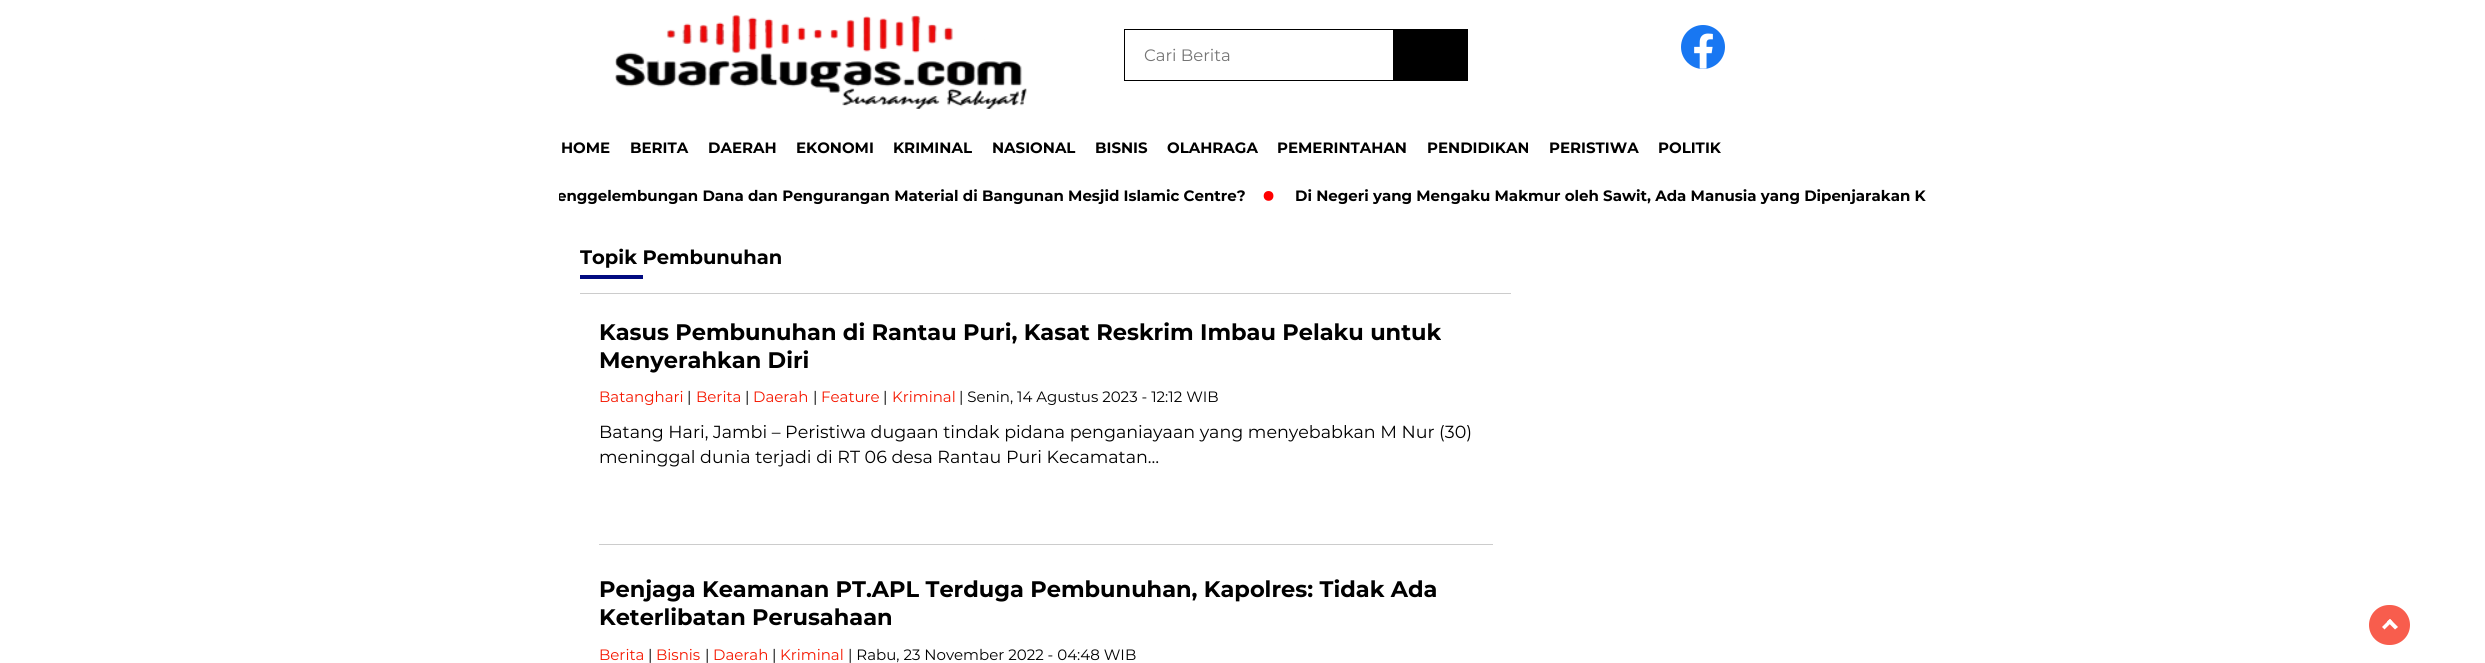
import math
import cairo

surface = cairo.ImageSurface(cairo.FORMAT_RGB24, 2485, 663)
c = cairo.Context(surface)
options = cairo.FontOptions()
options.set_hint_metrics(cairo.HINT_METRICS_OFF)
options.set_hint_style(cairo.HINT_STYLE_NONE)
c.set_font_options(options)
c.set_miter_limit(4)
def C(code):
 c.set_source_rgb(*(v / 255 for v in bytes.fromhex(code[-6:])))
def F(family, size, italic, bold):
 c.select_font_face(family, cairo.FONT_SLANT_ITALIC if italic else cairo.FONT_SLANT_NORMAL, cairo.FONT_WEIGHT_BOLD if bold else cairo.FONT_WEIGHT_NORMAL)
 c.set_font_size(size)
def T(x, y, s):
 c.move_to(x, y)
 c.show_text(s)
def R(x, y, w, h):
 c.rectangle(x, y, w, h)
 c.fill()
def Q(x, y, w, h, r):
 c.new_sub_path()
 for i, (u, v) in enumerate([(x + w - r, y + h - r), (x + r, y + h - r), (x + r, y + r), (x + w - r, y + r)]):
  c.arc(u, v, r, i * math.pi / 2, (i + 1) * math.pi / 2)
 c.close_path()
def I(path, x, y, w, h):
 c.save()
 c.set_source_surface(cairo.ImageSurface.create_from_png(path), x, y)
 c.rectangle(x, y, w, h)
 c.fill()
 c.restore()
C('ffffff')
c.paint()
I('1.png',615,14,412,95)
c.rectangle(1124.5,29.5,269,51)
C('000000')
c.set_line_width(1)
c.stroke()
F('Montserrat',16.5,0,0)
C('757575')
T(1144,61,'Cari Berita')
C('000000')
R(1394,29,74,52)
I('2.png',1681,25,44,44)
F('Montserrat',15,0,1)
T(561,153,'HOME')
T(630,153,'BERITA')
T(708,153,'DAERAH')
T(796,153,'EKONOMI')
T(893,153,'KRIMINAL')
T(992,153,'NASIONAL')
T(1095,153,'BISNIS')
T(1167,153,'OLAHRAGA')
T(1277,153,'PEMERINTAHAN')
T(1427,153,'PENDIDIKAN')
T(1549,153,'PERISTIWA')
T(1658,153,'POLITIK')
c.save()
c.rectangle(559,175,1369,38)
c.clip()
T(557,201,'enggelembungan Dana dan Pengurangan Material di Bangunan Mesjid Islamic Centre?')
c.restore()
F('Montserrat',50,0,1)
C('ff0000')
T(1261,210,'·')
F('Montserrat',15,0,1)
C('000000')
T(1295,201,'Di Negeri yang Mengaku Makmur oleh Sawit, Ada Manusia yang Dipenjarakan K')
C('cccccc')
R(580,293,931,1)
F('Montserrat',19.5,0,1)
C('000000')
T(580,264,'Topik Pembunuhan')
C('010a80')
R(580,275,63,4)
C('cccccc')
R(599,544,894,1)
F('Montserrat',22.5,0,1)
C('000000')
T(599,340,'Kasus Pembunuhan di Rantau Puri, Kasat Reskrim Imbau Pelaku untuk')
T(599,368,'Menyerahkan Diri')
F('Montserrat',15,0,0)
C('f51700')
T(599,402,'Batanghari')
C('000000')
T(687,402,'|')
C('f51700')
T(696,402,'Berita')
C('000000')
T(745,402,'|')
C('f51700')
T(753,402,'Daerah')
C('000000')
T(813,402,'|')
C('f51700')
T(821,402,'Feature')
C('000000')
T(883,402,'|')
C('f51700')
T(892,402,'Kriminal')
C('000000')
T(959,402,'| Senin, 14 Agustus 2023 - 12:12 WIB')
F('Montserrat',17.5,0,0)
T(599,438,'Batang Hari, Jambi – Peristiwa dugaan tindak pidana penganiayaan yang menyebabkan M Nur (30)')
T(599,463,'meninggal dunia terjadi di RT 06 desa Rantau Puri Kecamatan…')
F('Montserrat',22.5,0,1)
T(599,597,'Penjaga Keamanan PT.APL Terduga Pembunuhan, Kapolres: Tidak Ada')
T(599,625,'Keterlibatan Perusahaan')
F('Montserrat',15,0,0)
C('f51700')
T(599,660,'Berita')
C('000000')
T(648,660,'|')
C('f51700')
T(656,660,'Bisnis')
C('000000')
T(705,660,'|')
C('f51700')
T(713,660,'Daerah')
C('000000')
T(772,660,'|')
C('f51700')
T(780,660,'Kriminal')
C('000000')
T(848,660,'| Rabu, 23 November 2022 - 04:48 WIB')
C('f85d4d')
Q(2369,605,41,40,20)
c.fill()
C('ffffff')
c.new_path()
c.move_to(2384.5,629.5)
c.line_to(2382,627)
c.line_to(2390,619)
c.line_to(2392.5,621.5)
c.close_path()
c.fill()
c.new_path()
c.move_to(2395,629.5)
c.line_to(2387,621.5)
c.line_to(2390,619)
c.line_to(2398,627)
c.close_path()
c.fill()
surface.write_to_png('o.png')
